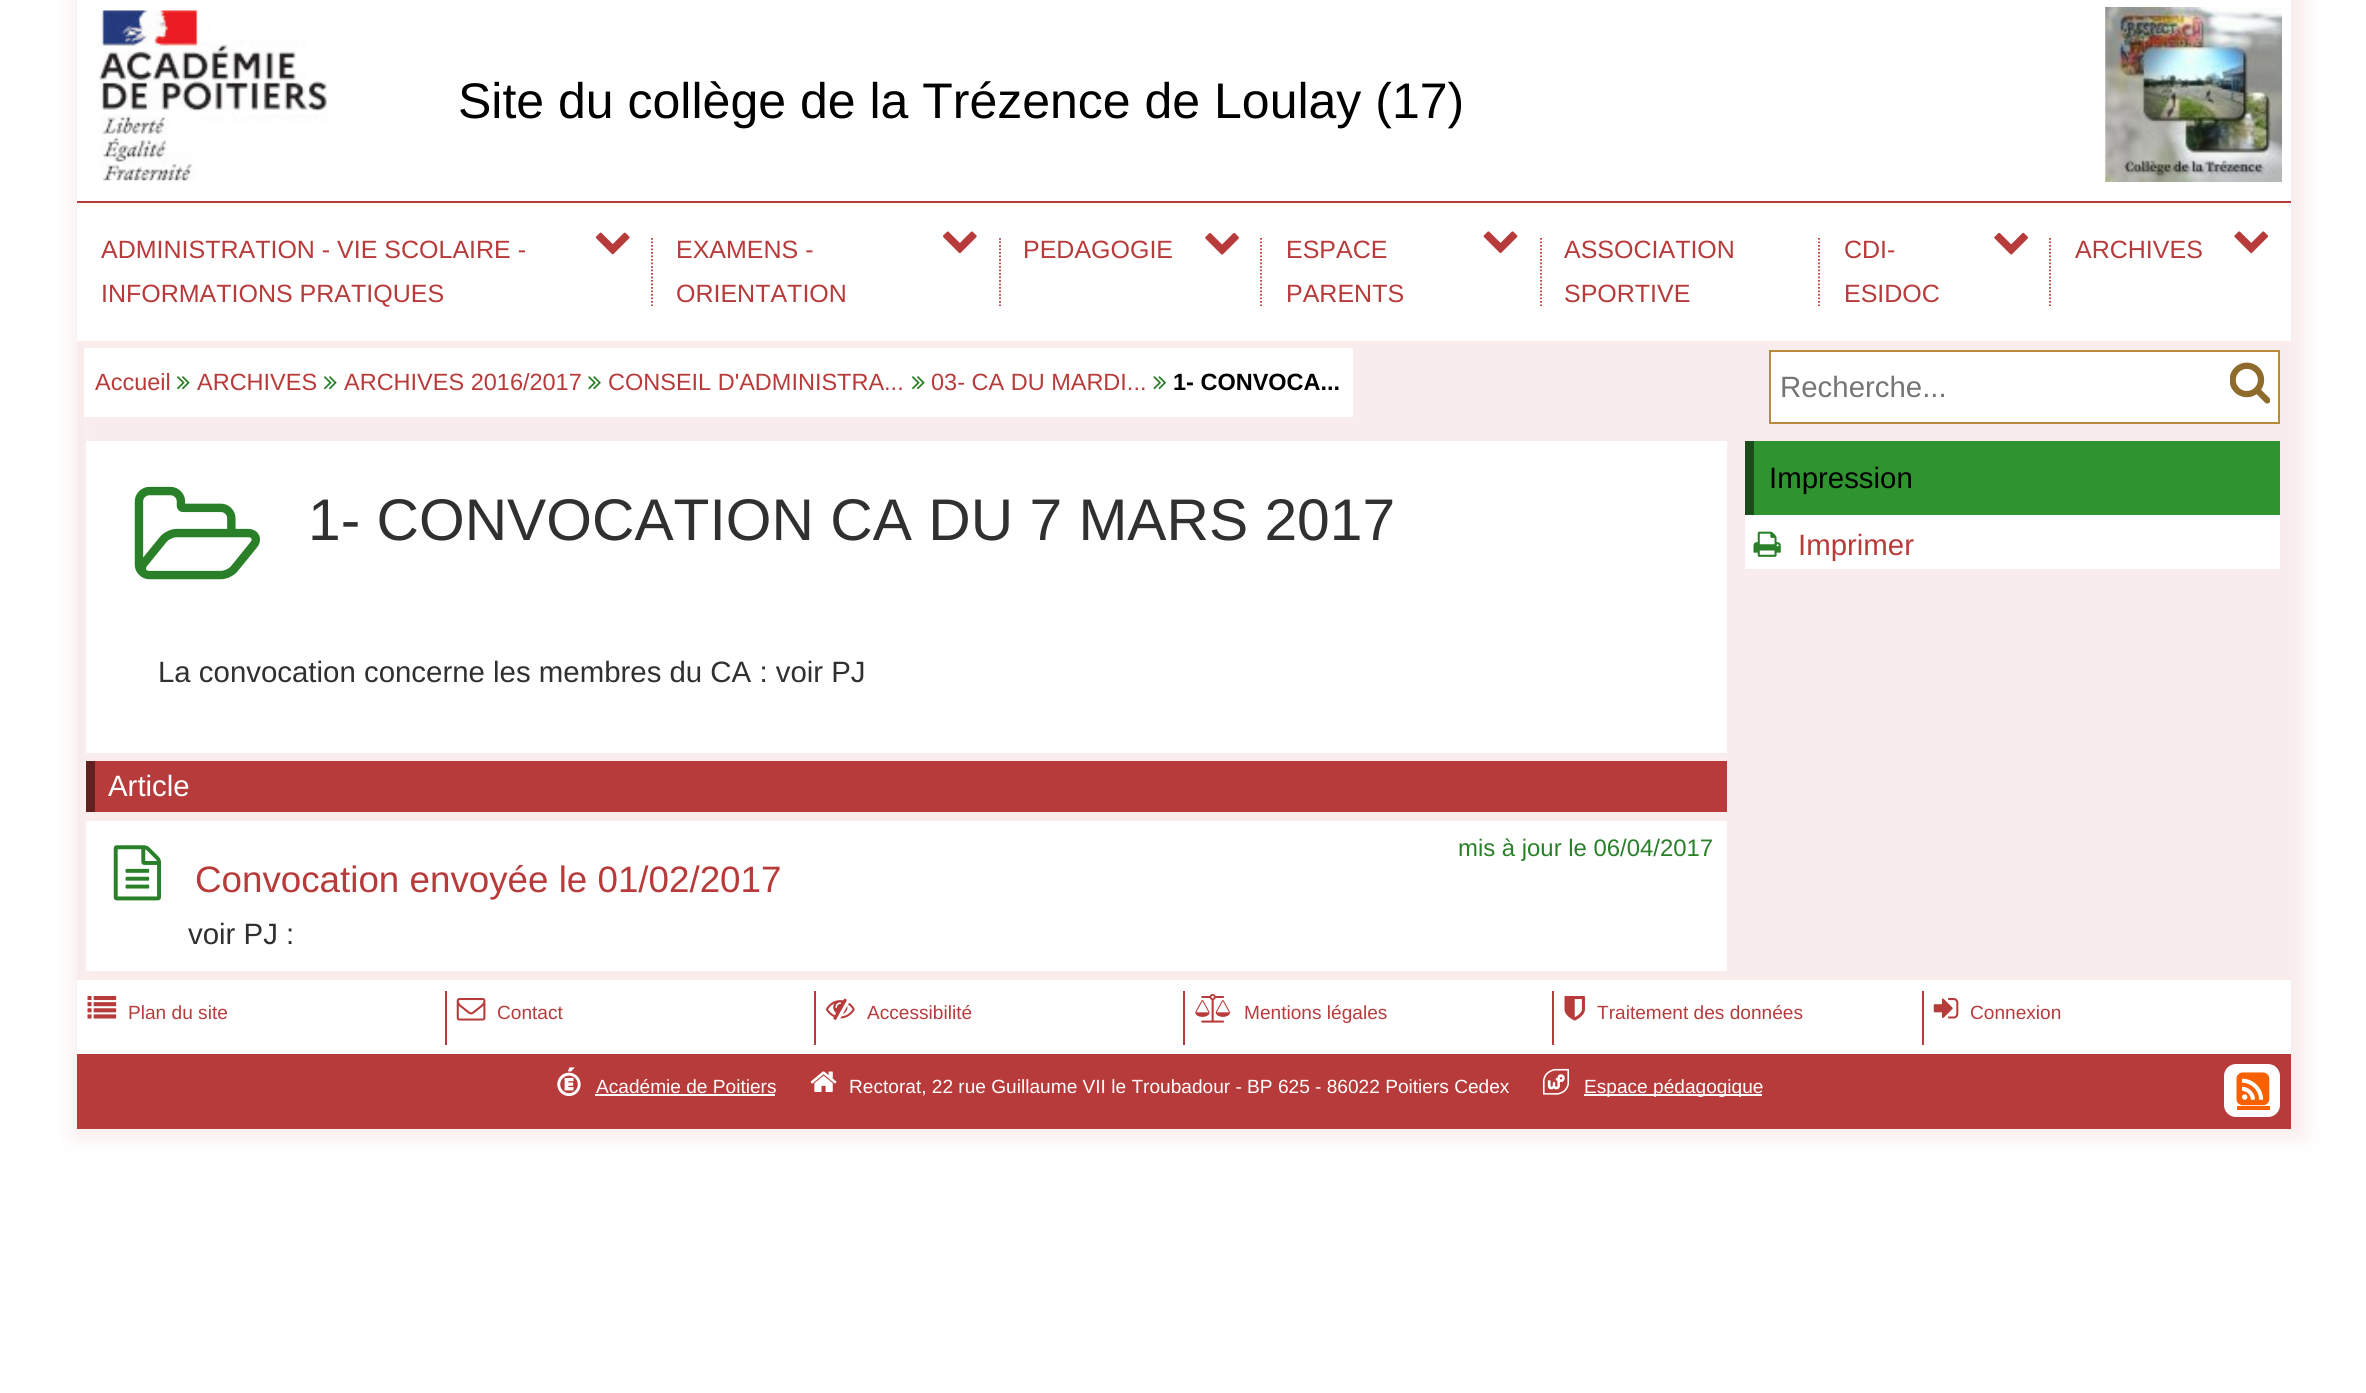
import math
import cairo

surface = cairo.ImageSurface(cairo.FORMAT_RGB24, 2366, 1393)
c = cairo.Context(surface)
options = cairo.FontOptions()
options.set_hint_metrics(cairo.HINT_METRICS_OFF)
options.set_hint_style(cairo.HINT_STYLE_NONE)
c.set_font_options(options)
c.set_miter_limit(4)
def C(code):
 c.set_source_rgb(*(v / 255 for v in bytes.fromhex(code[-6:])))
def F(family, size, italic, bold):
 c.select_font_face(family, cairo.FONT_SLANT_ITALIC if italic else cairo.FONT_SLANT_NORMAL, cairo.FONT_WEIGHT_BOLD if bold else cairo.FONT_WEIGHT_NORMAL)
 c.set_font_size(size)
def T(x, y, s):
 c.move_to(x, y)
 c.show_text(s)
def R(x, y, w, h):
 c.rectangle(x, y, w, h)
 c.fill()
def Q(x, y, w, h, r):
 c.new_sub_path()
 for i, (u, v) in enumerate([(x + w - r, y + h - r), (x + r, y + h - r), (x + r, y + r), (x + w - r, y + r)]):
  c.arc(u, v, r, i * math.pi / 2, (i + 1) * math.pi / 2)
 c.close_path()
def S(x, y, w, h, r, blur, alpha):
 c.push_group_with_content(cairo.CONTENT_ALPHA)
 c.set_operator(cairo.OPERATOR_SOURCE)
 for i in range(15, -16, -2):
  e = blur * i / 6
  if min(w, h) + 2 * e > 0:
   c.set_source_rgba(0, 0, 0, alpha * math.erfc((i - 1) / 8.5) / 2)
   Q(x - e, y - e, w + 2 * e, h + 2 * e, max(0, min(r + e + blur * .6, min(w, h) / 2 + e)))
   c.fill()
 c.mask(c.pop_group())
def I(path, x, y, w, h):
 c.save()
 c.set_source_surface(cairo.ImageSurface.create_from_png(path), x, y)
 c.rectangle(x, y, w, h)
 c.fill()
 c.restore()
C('ffffff')
c.paint()
C('f9ecec')
S(74,-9,2231,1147,0,9,1)
C('f9ecec')
R(77,341,7,639)
C('ffffff')
R(77,0,2214,201)
I('1.png',99,10,228,171)
F('Liberation Sans',50,0,0)
C('000000')
T(458,118,'Site du collège de la Trézence de Loulay (17)')
I('2.png',2105,7,177,175)
C('ffffff')
R(77,203,2214,138)
C('b83b3b')
R(77,201,2214,2)
F('Liberation Sans',25,0,0)
T(101,258,'ADMINISTRATION - VIE SCOLAIRE -')
T(101,302,'INFORMATIONS PRATIQUES')
I('3.png',595,232,35,23)
c.new_path()
c.move_to(652,238)
c.line_to(652,306)
c.set_line_width(1.8)
c.set_dash([1.75,1.75])
c.stroke()
T(676,258,'EXAMENS -')
T(676,302,'ORIENTATION')
I('4.png',943,231,34,23)
c.new_path()
c.move_to(1000,238)
c.line_to(1000,306)
c.stroke()
T(1023,258,'PEDAGOGIE')
I('5.png',1205,233,34,22)
c.new_path()
c.move_to(1261,238)
c.line_to(1261,306)
c.stroke()
T(1286,258,'ESPACE')
T(1286,302,'PARENTS')
I('6.png',1483,231,35,23)
c.new_path()
c.move_to(1541,238)
c.line_to(1541,306)
c.stroke()
T(1564,258,'ASSOCIATION')
T(1564,302,'SPORTIVE')
c.new_path()
c.move_to(1819,238)
c.line_to(1819,306)
c.stroke()
T(1844,258,'CDI-')
T(1844,302,'ESIDOC')
I('7.png',1994,232,34,23)
c.new_path()
c.move_to(2050,238)
c.line_to(2050,306)
c.stroke()
T(2075,258,'ARCHIVES')
I('8.png',2234,231,35,23)
C('ffffff')
R(84,348,1269,69)
F('Liberation Sans',23.5,0,0)
C('b83b3b')
T(95,390,'Accueil')
I('9.png',177,376,13,14)
T(197,390,'ARCHIVES')
I('9.png',324,376,13,14)
T(344,390,'ARCHIVES 2016/2017')
I('10.png',588,376,13,14)
T(608,390,'CONSEIL D\'ADMINISTRA...')
I('9.png',912,376,13,14)
T(931,390,'03- CA DU MARDI...')
I('11.png',1153,376,14,14)
F('Liberation Sans',23.5,0,1)
C('000000')
T(1173,390,'1- CONVOCA...')
C('ffffff')
c.rectangle(1770,351,509,72)
c.fill_preserve()
C('b88b3b')
c.set_line_width(2)
c.set_dash([])
c.stroke()
F('Liberation Sans',29.4,0,0)
C('757575')
T(1780,397,'Recherche...')
I('12.png',2230,362,40,42)
C('ffffff')
R(86,441,1641,312)
I('13.png',134,486,126,94)
F('Liberation Sans',58.75,0,0)
C('303030')
T(308,540,'1- CONVOCATION CA DU 7 MARS 2017')
F('Liberation Sans',29.4,0,0)
T(158,682,'La convocation concerne les membres du CA : voir PJ')
C('b83b3b')
R(95,761,1632,51)
C('632020')
R(86,761,9,51)
C('ffffff')
T(108,796,'Article')
R(86,821,1641,150)
I('14.png',113,845,48,56)
F('Liberation Sans',36.75,0,0)
C('b83b3b')
T(195,892,'Convocation envoyée le 01/02/2017')
F('Liberation Sans',23.9,0,0)
C('298029')
T(1458,856,'mis à jour le 06/04/2017')
F('Liberation Sans',29.4,0,0)
C('303030')
T(188,944,'voir PJ :')
C('ffffff')
R(1745,515,535,54)
C('2f932f')
R(1754,441,526,74)
C('194d19')
R(1745,441,9,74)
C('000000')
T(1769,488,'Impression')
I('15.png',1753,531,28,26)
C('b83b3b')
T(1798,555,'Imprimer')
C('ffffff')
R(77,980,2214,74)
I('16.png',87,996,30,23)
F('Liberation Sans',19.1,0,0)
C('b83b3b')
T(128,1019,'Plan du site')
R(445,991,2,54)
I('17.png',456,998,30,23)
T(497,1019,'Contact')
R(814,991,2,54)
I('18.png',826,998,29,22)
T(867,1019,'Accessibilité')
R(1183,991,2,54)
I('19.png',1195,993,35,30)
T(1244,1019,'Mentions légales')
R(1552,991,2,54)
I('20.png',1564,996,21,25)
T(1597,1019,'Traitement des données')
R(1922,991,2,54)
I('21.png',1933,998,26,21)
T(1970,1019,'Connexion')
R(77,1054,2214,75)
I('22.png',557,1067,24,30)
C('ffffff')
T(596,1093,'Académie de Poitiers')
R(595,1094,180,2)
I('23.png',810,1071,27,21)
T(849,1093,'Rectorat, 22 rue Guillaume VII le Troubadour - BP 625 - 86022 Poitiers Cedex')
I('24.png',1543,1068,27,27)
R(1584,1094,178,2)
T(1584,1093,'Espace pédagogique')
Q(2224,1064,56,53,12)
c.fill()
I('25.png',2236,1072,34,34)
C('f86000')
R(2237,1106,33,4)
surface.write_to_png('o.png')
